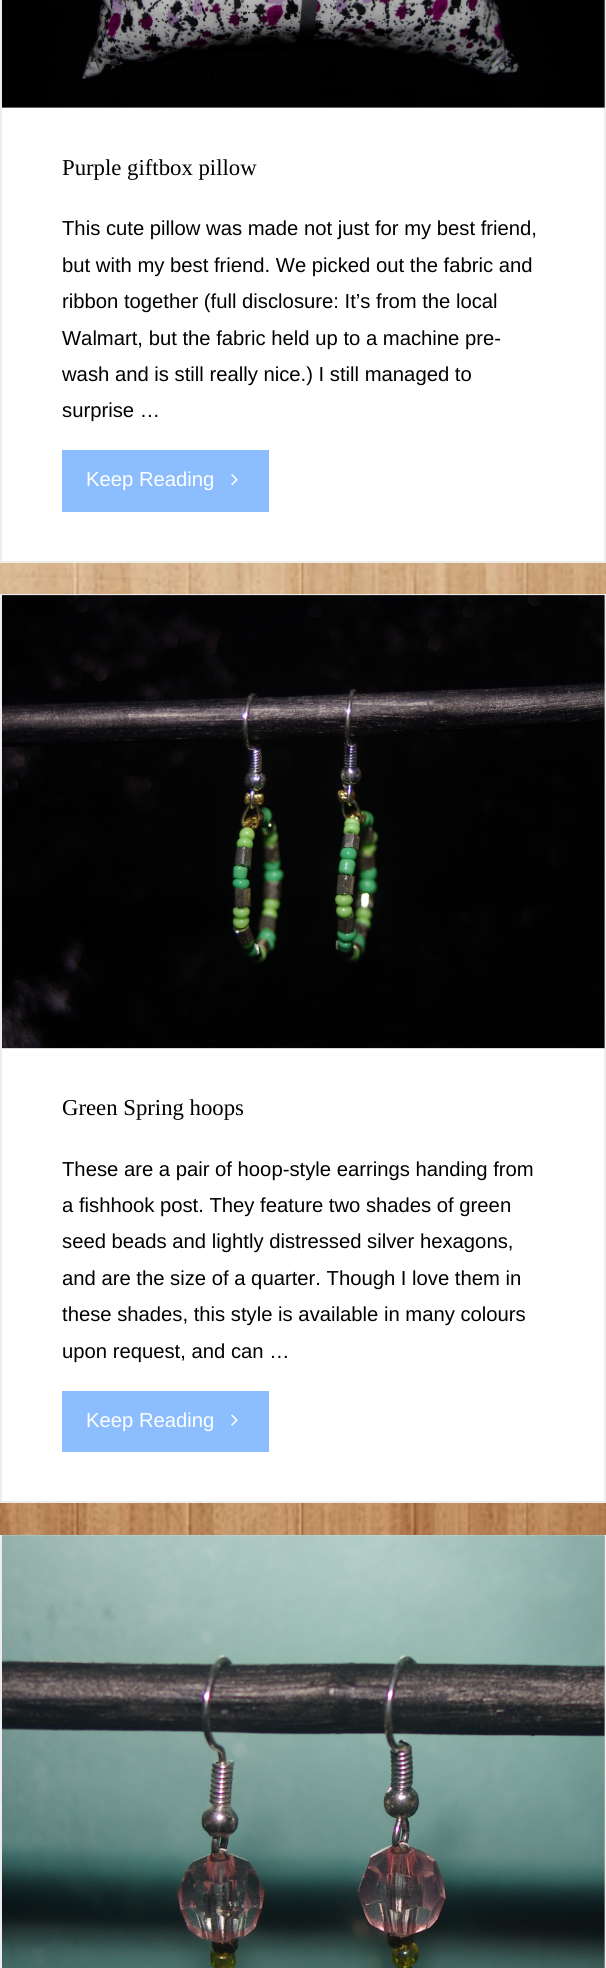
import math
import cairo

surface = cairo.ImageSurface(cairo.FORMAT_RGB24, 606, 1968)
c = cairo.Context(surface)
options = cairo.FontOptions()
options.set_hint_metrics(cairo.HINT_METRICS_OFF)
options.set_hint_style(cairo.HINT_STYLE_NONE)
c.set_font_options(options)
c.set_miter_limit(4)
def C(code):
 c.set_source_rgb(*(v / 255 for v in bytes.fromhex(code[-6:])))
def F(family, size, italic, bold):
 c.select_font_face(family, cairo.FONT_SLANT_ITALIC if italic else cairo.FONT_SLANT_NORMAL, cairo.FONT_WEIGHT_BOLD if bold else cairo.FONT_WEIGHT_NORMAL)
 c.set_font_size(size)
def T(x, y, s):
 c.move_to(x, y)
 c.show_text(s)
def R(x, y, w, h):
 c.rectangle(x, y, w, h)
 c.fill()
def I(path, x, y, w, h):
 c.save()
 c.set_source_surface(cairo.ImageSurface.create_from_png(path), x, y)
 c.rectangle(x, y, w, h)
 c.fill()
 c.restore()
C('ffffff')
c.paint()
I('1.png',0,563,606,972)
c.rectangle(1,-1,604,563)
C('ededed')
c.stroke()
c.set_source_rgba(0,0,0,0.15)
R(2,0,603,108)
I('2.png',2,0,603,108)
F('Liberation Serif',22.75,0,0)
C('000000')
T(62,175,'Purple giftbox pillow')
F('Liberation Sans',20.25,0,0)
T(62,235,'This cute pillow was made not just for my best friend,')
T(62,272,'but with my best friend. We picked out the fabric and')
T(62,308,'ribbon together (full disclosure: It’s from the local')
T(62,345,'Walmart, but the fabric held up to a machine pre-')
T(62,381,'wash and is still really nice.) I still managed to')
T(62,417,'surprise …')
C('8cbdff')
R(62,450,207,62)
C('ffffff')
T(86,486,'Keep Reading')
I('3.png',231,474,7,12)
R(2,1047,602,454)
c.rectangle(1,595,604,907)
C('ededed')
c.stroke()
c.set_source_rgba(0,0,0,0.15)
R(2,596,603,453)
I('4.png',2,595,603,453)
F('Liberation Serif',22.75,0,0)
C('000000')
T(62,1115,'Green Spring hoops')
F('Liberation Sans',20.25,0,0)
T(62,1176,'These are a pair of hoop-style earrings handing from')
T(62,1212,'a fishhook post. They feature two shades of green')
T(62,1248,'seed beads and lightly distressed silver hexagons,')
T(62,1285,'and are the size of a quarter. Though I love them in')
T(62,1321,'these shades, this style is available in many colours')
T(62,1358,'upon request, and can …')
C('8cbdff')
R(62,1391,207,61)
C('ffffff')
T(86,1427,'Keep Reading')
I('5.png',231,1414,7,12)
c.rectangle(1,1536,604,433)
C('ededed')
c.stroke()
c.set_source_rgba(0,0,0,0.15)
R(604,1536,1,432)
I('6.png',2,1535,603,433)
surface.write_to_png('o.png')
